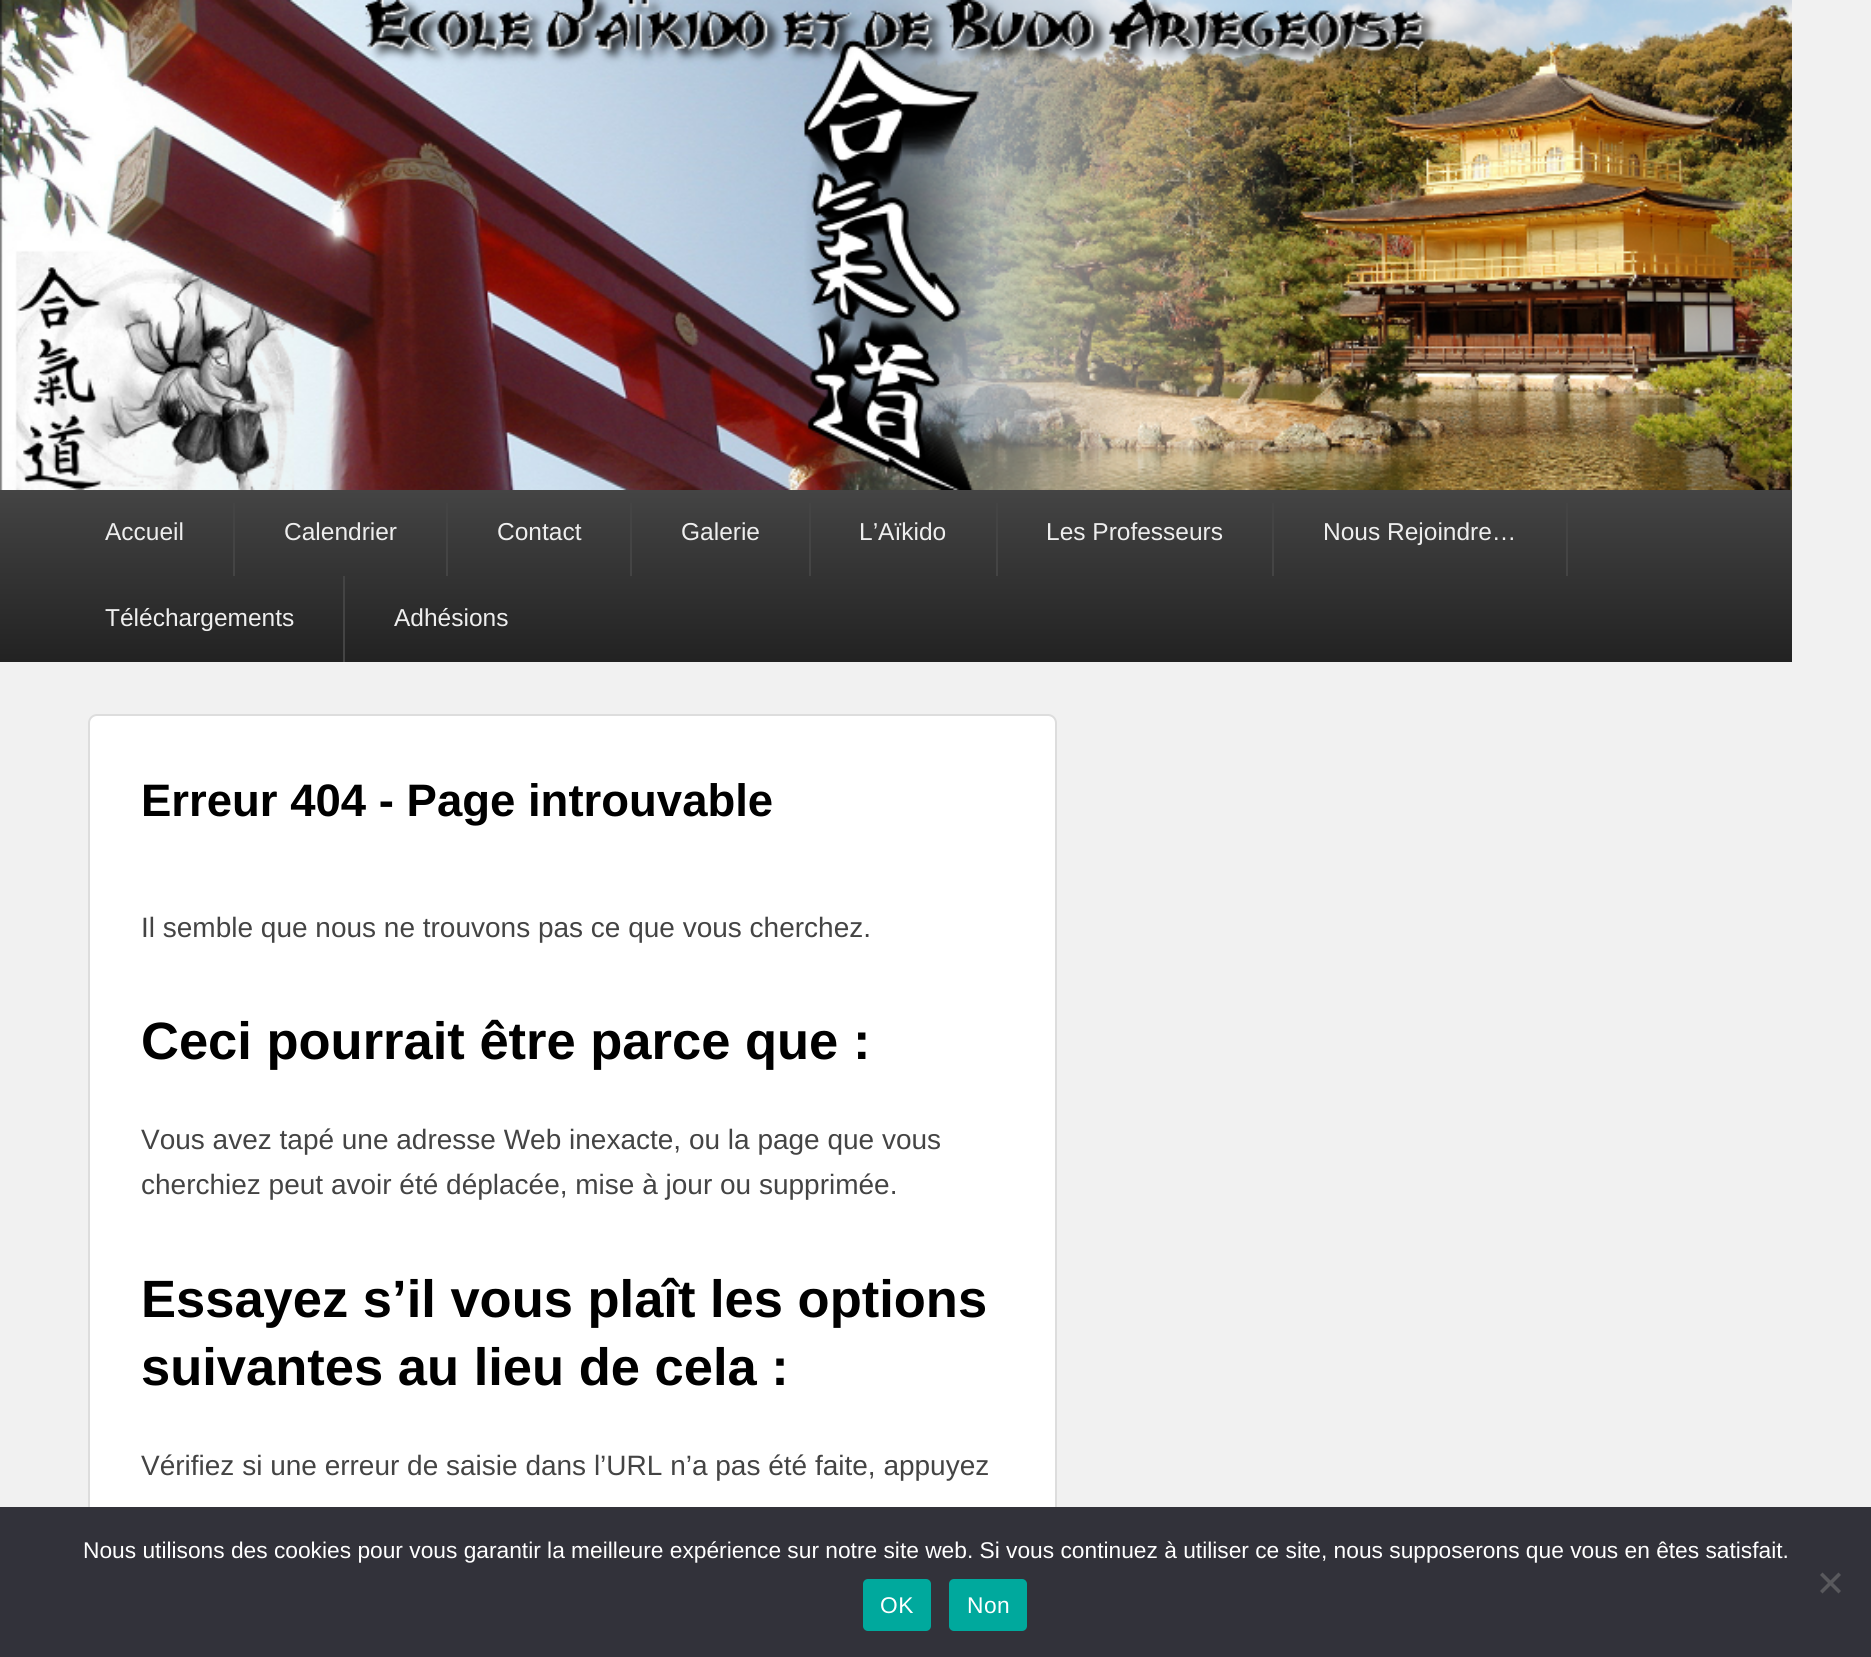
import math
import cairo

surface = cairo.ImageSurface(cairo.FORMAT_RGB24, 1871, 1657)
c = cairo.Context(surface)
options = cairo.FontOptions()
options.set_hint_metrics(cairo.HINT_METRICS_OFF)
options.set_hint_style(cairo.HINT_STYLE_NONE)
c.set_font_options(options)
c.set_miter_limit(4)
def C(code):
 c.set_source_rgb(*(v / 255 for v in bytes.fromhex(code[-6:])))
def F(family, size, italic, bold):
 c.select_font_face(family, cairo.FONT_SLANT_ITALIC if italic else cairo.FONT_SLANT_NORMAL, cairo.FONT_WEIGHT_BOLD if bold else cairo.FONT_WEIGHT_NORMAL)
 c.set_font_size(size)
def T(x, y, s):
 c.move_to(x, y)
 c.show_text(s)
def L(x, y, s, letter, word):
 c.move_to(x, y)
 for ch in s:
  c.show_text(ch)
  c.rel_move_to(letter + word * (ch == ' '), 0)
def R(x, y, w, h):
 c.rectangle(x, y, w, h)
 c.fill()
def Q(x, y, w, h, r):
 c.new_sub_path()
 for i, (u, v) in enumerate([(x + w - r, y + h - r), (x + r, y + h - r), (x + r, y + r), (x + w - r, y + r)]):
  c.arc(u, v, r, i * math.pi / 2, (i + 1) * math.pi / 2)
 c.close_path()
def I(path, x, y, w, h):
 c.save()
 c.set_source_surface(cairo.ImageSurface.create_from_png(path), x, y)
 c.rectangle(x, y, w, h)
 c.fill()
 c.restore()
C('f1f1f1')
c.paint()
I('1.png',0,0,1792,490)
gradient = cairo.LinearGradient(896,490,896,662)
gradient.add_color_stop_rgba(0,0.267,0.267,0.267,1)
gradient.add_color_stop_rgba(1,0.133,0.133,0.133,1)
c.set_source(gradient)
R(0,490,1792,172)
C('444444')
R(233,503,2,73)
F('Liberation Sans',24.5,0,0)
C('eeeeee')
T(105,540,'Accueil')
C('444444')
R(446,503,2,73)
C('eeeeee')
T(284,540,'Calendrier')
C('444444')
R(630,503,2,73)
C('eeeeee')
T(497,540,'Contact')
C('444444')
R(809,503,2,73)
C('eeeeee')
T(681,540,'Galerie')
C('444444')
R(996,503,2,73)
C('eeeeee')
T(859,540,'L’Aïkido')
C('444444')
R(1272,503,2,73)
C('eeeeee')
T(1046,540,'Les Professeurs')
C('444444')
R(1566,503,2,73)
C('eeeeee')
T(1323,540,'Nous Rejoindre…')
C('444444')
R(343,576,2,86)
C('eeeeee')
T(105,626,'Téléchargements')
T(394,626,'Adhésions')
C('ffffff')
Q(89,715,967,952,8)
c.fill_preserve()
C('dddddd')
c.stroke()
F('Liberation Sans',45.5,0,1)
C('000000')
T(141,816,'Erreur 404 - Page introuvable')
F('Liberation Sans',28,0,0)
C('444444')
T(141,937,'Il semble que nous ne trouvons pas ce que vous cherchez.')
F('Liberation Sans',52.5,0,1)
C('000000')
T(141,1059,'Ceci pourrait être parce que :')
F('Liberation Sans',28,0,0)
C('444444')
T(141,1149,'Vous avez tapé une adresse Web inexacte, ou la page que vous')
T(141,1194,'cherchiez peut avoir été déplacée, mise à jour ou supprimée.')
F('Liberation Sans',52.5,0,1)
C('000000')
T(141,1317,'Essayez s’il vous plaît les options')
T(141,1385,'suivantes au lieu de cela :')
F('Liberation Sans',28,0,0)
C('444444')
T(141,1475,'Vérifiez si une erreur de saisie dans l’URL n’a pas été faite, appuyez')
C('32323a')
R(0,1507,1871,150)
F('Liberation Sans',22.75,0,0)
C('ffffff')
T(83,1558,'Nous utilisons des cookies pour vous garantir la meilleure expérience sur notre site web. Si vous continuez à utiliser ce site, nous supposerons que vous en êtes satisfait.')
C('59595d')
c.new_path()
c.move_to(1838.5,1572.5)
c.line_to(1841,1575)
c.line_to(1822.5,1593.5)
c.line_to(1820,1591)
c.close_path()
c.fill()
c.new_path()
c.move_to(1820,1575)
c.line_to(1822.5,1572.5)
c.line_to(1841,1591)
c.line_to(1838.5,1593.5)
c.close_path()
c.fill()
C('00a99d')
Q(863,1579,68,52,5)
c.fill()
C('ffffff')
L(880,1613,'OK',.5,0)
C('00a99d')
Q(949,1579,78,52,5)
c.fill()
C('ffffff')
L(967,1613,'Non',.5,0)
surface.write_to_png('o.png')
